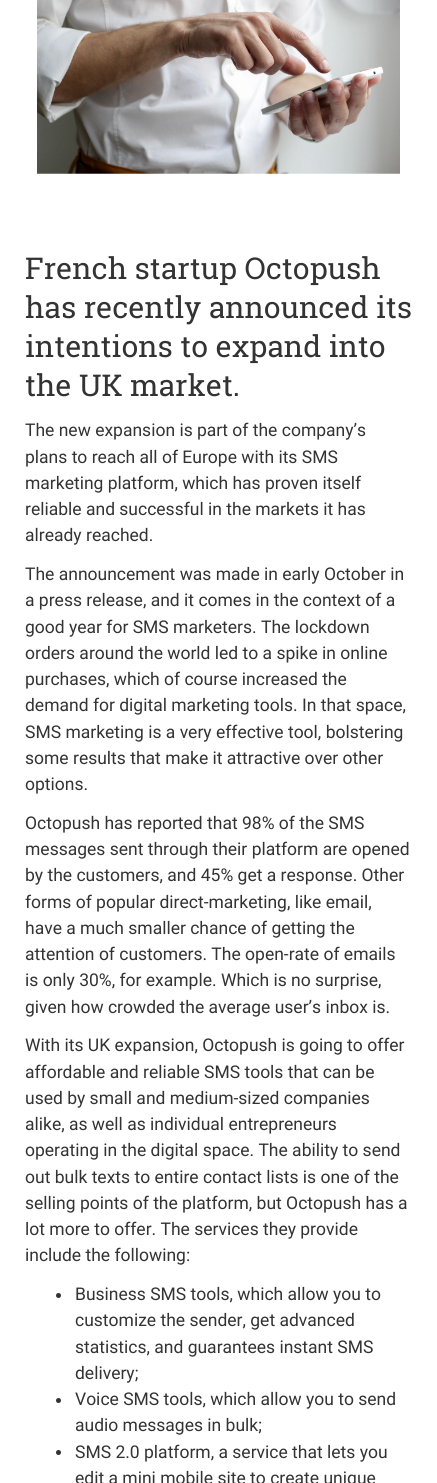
import math
import cairo

surface = cairo.ImageSurface(cairo.FORMAT_RGB24, 437, 1483)
c = cairo.Context(surface)
options = cairo.FontOptions()
options.set_hint_metrics(cairo.HINT_METRICS_OFF)
options.set_hint_style(cairo.HINT_STYLE_NONE)
c.set_font_options(options)
c.set_miter_limit(4)
def C(code):
 c.set_source_rgb(*(v / 255 for v in bytes.fromhex(code[-6:])))
def F(family, size, italic, bold):
 c.select_font_face(family, cairo.FONT_SLANT_ITALIC if italic else cairo.FONT_SLANT_NORMAL, cairo.FONT_WEIGHT_BOLD if bold else cairo.FONT_WEIGHT_NORMAL)
 c.set_font_size(size)
def T(x, y, s):
 c.move_to(x, y)
 c.show_text(s)
def I(path, x, y, w, h):
 c.save()
 c.set_source_surface(cairo.ImageSurface.create_from_png(path), x, y)
 c.rectangle(x, y, w, h)
 c.fill()
 c.restore()
C('ffffff')
c.paint()
I('1.png',37,0,363,174)
F('Roboto Slab',30,0,0)
C('333333')
T(25,279,'French startup Octopush')
T(25,318,'has recently announced its')
T(25,357,'intentions to expand into')
T(25,396,'the UK market.')
F('Roboto',17.5,0,0)
T(25,436,'The new expansion is part of the company’s')
T(25,463,'plans to reach all of Europe with its SMS')
T(25,489,'marketing platform, which has proven itself')
T(25,515,'reliable and successful in the markets it has')
T(25,541,'already reached.')
T(25,580,'The announcement was made in early October in')
T(25,606,'a press release, and it comes in the context of a')
T(25,633,'good year for SMS marketers. The lockdown')
T(25,659,'orders around the world led to a spike in online')
T(25,685,'purchases, which of course increased the')
T(25,711,'demand for digital marketing tools. In that space,')
T(25,738,'SMS marketing is a very effective tool, bolstering')
T(25,764,'some results that make it attractive over other')
T(25,790,'options.')
T(25,829,'Octopush has reported that 98% of the SMS')
T(25,855,'messages sent through their platform are opened')
T(25,881,'by the customers, and 45% get a response. Other')
T(25,908,'forms of popular direct-marketing, like email,')
T(25,934,'have a much smaller chance of getting the')
T(25,960,'attention of customers. The open-rate of emails')
T(25,986,'is only 30%, for example. Which is no surprise,')
T(25,1013,'given how crowded the average user’s inbox is.')
T(25,1051,'With its UK expansion, Octopush is going to offer')
T(25,1078,'affordable and reliable SMS tools that can be')
T(25,1104,'used by small and medium-sized companies')
T(25,1130,'alike, as well as individual entrepreneurs')
T(25,1156,'operating in the digital space. The ability to send')
T(25,1183,'out bulk texts to entire contact lists is one of the')
T(25,1209,'selling points of the platform, but Octopush has a')
T(25,1235,'lot more to offer. The services they provide')
T(25,1261,'include the following:')
c.new_path()
c.arc(58.5,1295.5,2.5,0,2 * math.pi)
c.fill()
T(75,1300,'Business SMS tools, which allow you to')
T(75,1326,'customize the sender, get advanced')
T(75,1353,'statistics, and guarantees instant SMS')
T(75,1379,'delivery;')
c.new_path()
c.arc(58.5,1400.5,2.5,0,2 * math.pi)
c.fill()
T(75,1405,'Voice SMS tools, which allow you to send')
T(75,1431,'audio messages in bulk;')
c.new_path()
c.arc(58.5,1452.5,2.5,0,2 * math.pi)
c.fill()
T(75,1458,'SMS 2.0 platform, a service that lets you')
T(75,1484,'edit a mini mobile site to create unique')
surface.write_to_png('o.png')
